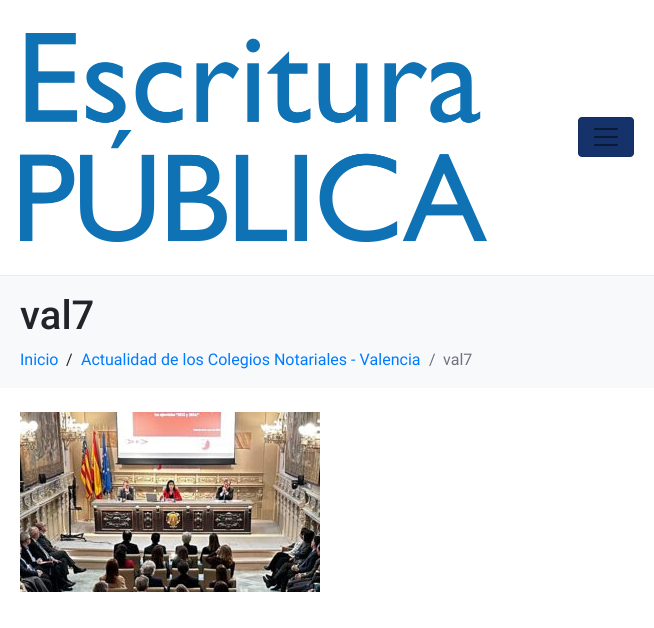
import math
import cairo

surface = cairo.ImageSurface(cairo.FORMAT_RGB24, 654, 628)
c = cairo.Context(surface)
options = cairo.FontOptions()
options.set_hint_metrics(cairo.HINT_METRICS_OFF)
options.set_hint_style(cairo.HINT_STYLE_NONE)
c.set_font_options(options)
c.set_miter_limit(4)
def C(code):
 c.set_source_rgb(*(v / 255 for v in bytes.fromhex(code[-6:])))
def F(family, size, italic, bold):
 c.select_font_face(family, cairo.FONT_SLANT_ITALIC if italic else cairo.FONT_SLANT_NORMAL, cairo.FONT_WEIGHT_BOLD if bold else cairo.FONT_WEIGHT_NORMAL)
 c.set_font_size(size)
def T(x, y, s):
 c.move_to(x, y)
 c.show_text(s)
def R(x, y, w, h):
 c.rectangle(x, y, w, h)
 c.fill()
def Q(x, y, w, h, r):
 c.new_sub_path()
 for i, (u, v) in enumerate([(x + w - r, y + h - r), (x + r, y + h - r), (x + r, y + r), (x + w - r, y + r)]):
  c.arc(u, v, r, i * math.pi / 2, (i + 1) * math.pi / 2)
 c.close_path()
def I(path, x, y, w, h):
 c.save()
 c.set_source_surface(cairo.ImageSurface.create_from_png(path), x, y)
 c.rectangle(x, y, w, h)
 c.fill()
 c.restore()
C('ffffff')
c.paint()
C('e9ecef')
R(0,275,654,1)
I('1.png',20,33,467,209)
C('15326a')
Q(578,117,56,40,4)
c.fill()
Q(578.5,117.5,55,39,3.5)
c.set_source_rgba(0,0,0,0.1)
c.set_line_width(1)
c.stroke()
I('2.png',594,128,24,18)
C('f8f9fa')
R(0,276,654,112)
F('Roboto Medium',40,0,0)
C('212529')
T(20,329,'val7')
F('Roboto',16,0,0)
C('007bff')
T(20,365,'Inicio')
C('212529')
T(66,365,'/')
C('007bff')
T(81,365,'Actualidad de los Colegios Notariales - Valencia')
C('6c757d')
T(429,365,'/')
T(443,365,'val7')
I('3.png',20,412,300,180)
surface.write_to_png('o.png')
